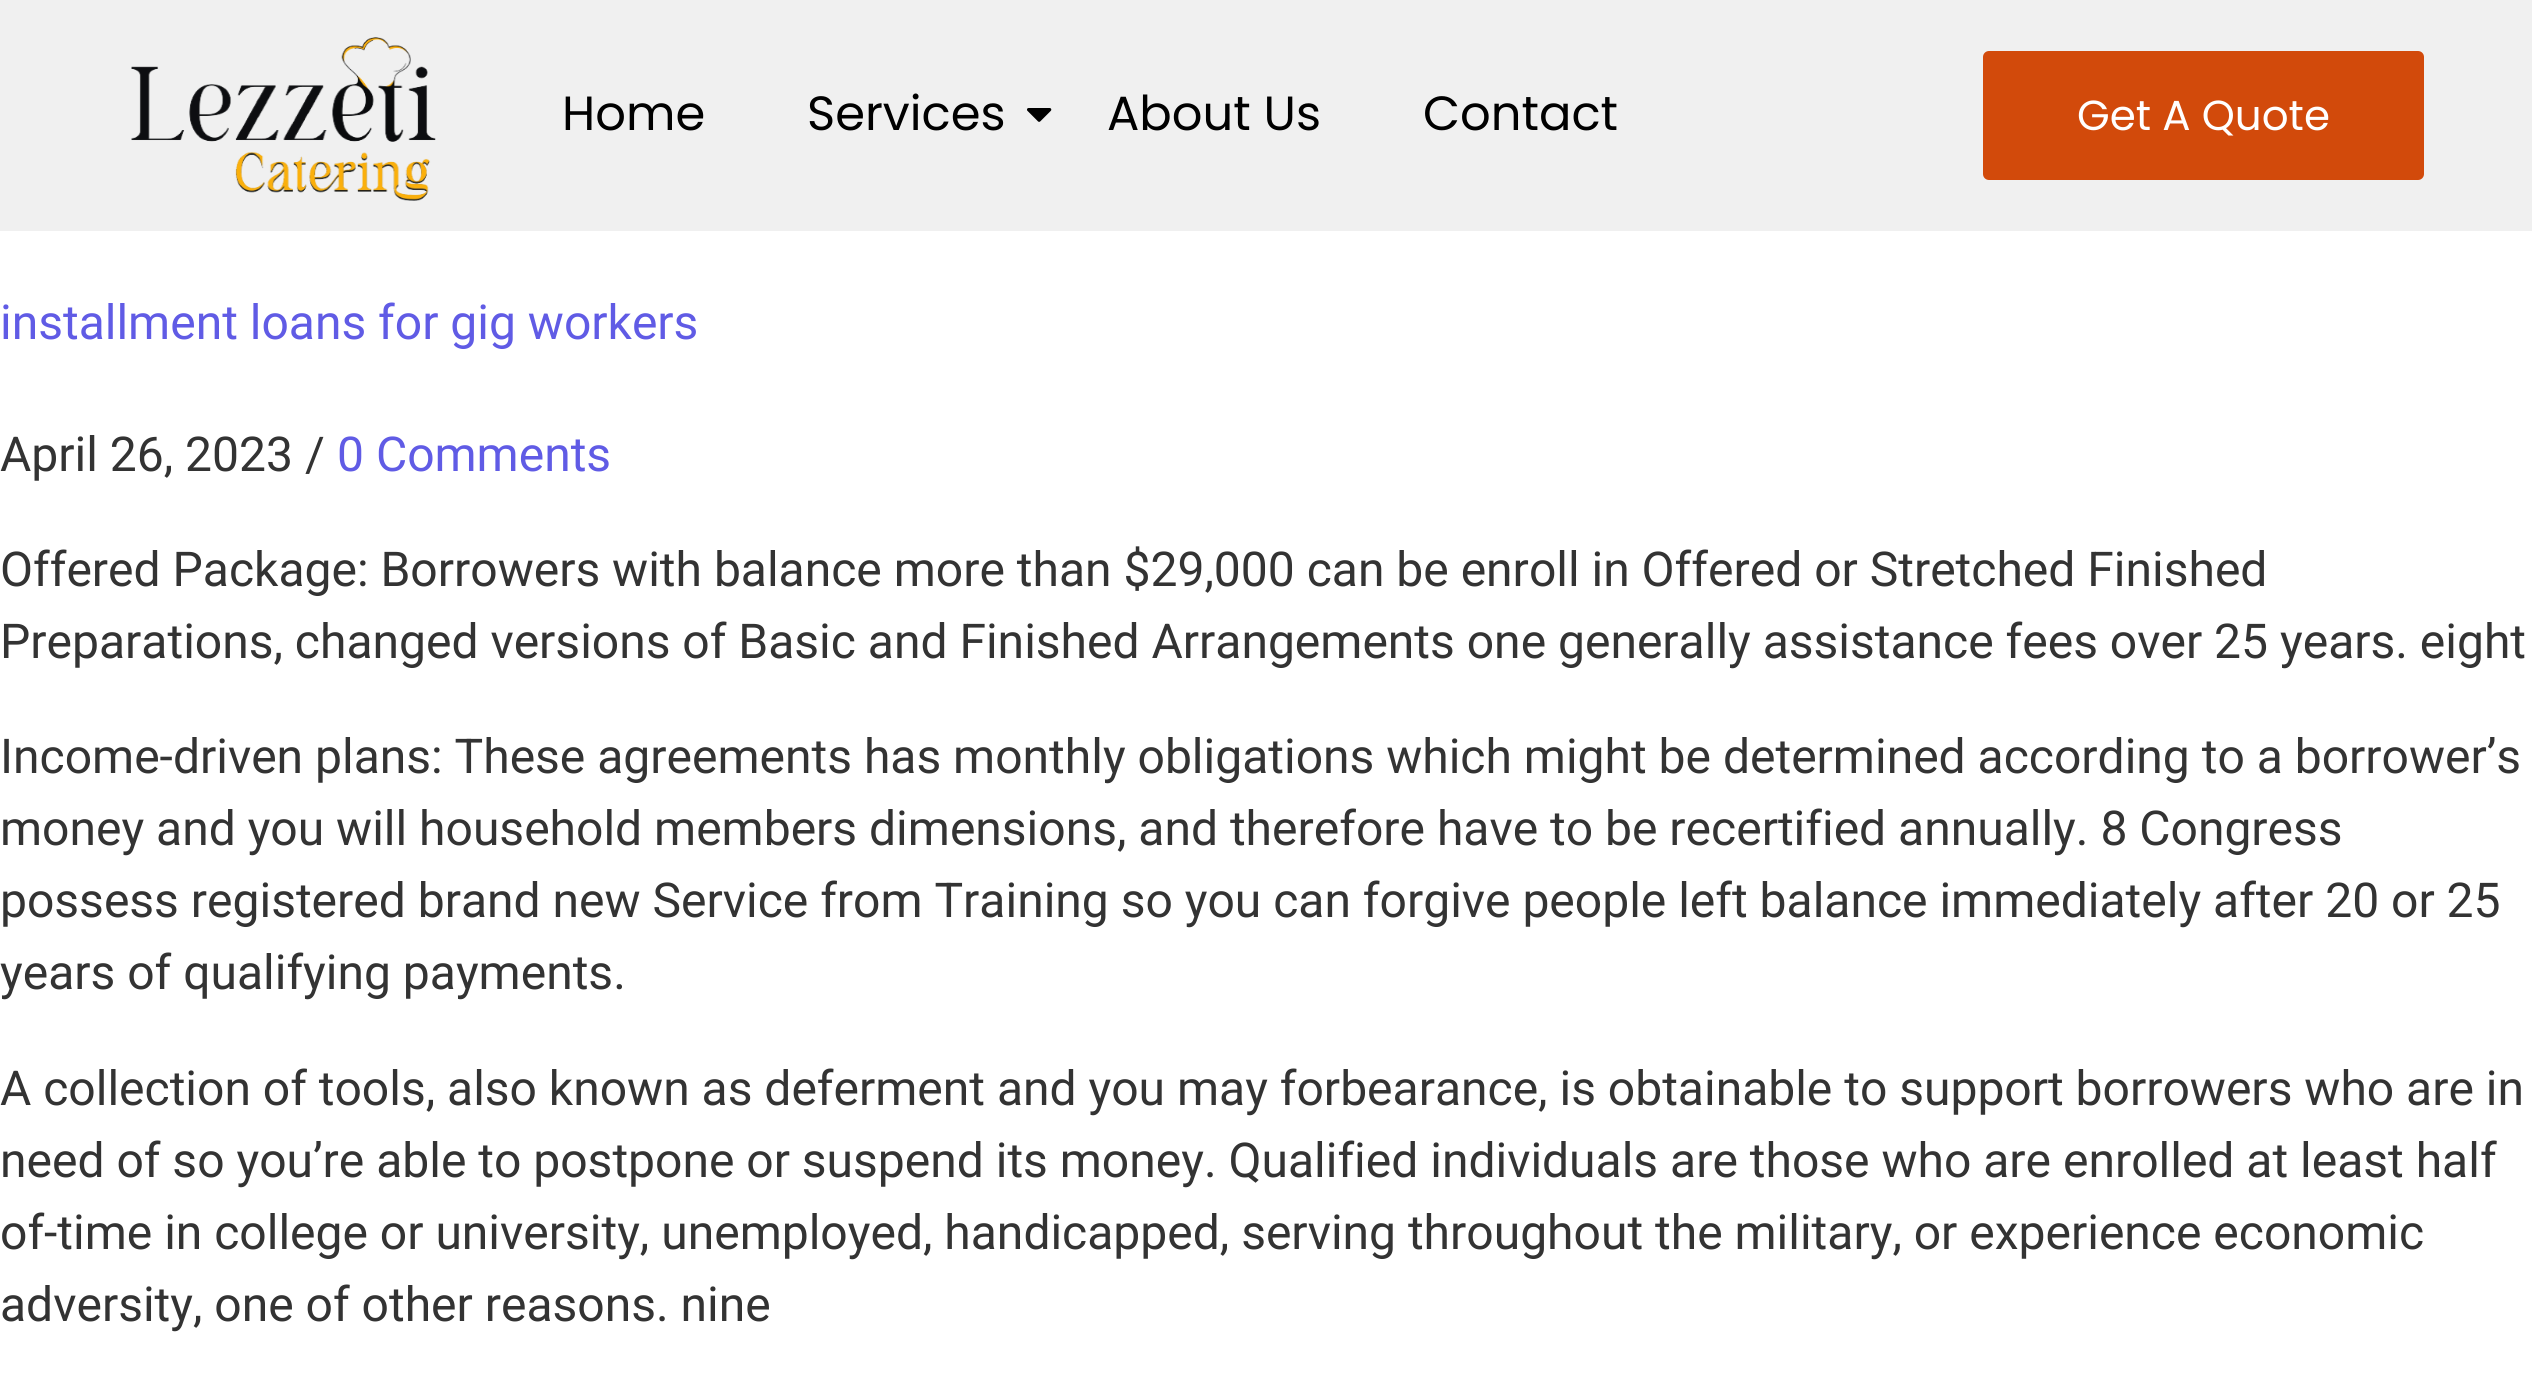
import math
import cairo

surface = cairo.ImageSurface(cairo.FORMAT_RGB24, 2532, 1397)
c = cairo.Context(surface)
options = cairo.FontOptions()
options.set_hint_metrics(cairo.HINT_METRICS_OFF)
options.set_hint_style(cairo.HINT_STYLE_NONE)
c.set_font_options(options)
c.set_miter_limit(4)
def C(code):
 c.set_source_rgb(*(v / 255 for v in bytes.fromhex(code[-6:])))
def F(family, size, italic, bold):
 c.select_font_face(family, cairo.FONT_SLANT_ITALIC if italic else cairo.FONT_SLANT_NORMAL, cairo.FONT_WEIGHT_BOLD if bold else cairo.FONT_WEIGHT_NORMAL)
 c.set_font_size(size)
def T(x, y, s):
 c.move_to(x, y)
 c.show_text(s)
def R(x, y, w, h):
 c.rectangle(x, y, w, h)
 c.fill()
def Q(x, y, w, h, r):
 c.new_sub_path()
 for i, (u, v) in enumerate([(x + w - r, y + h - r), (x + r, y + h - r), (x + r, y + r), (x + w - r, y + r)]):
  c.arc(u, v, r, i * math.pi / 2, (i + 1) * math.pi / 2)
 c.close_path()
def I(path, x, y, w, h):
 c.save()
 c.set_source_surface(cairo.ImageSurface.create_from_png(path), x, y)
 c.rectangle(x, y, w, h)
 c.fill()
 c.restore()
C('ffffff')
c.paint()
c.set_source_rgba(0.914,0.914,0.914,0.71)
R(0,0,2532,231)
I('1.png',131,37,305,164)
F('Poppins',48,0,0)
C('000000')
T(562,130,'Home')
T(807,130,'Services')
I('2.png',1027,108,25,14)
T(1107,130,'About Us')
T(1423,130,'Contact')
C('d24a0b')
Q(1984.5,52.5,438,126,4.5)
c.fill_preserve()
c.set_line_width(3)
c.stroke()
F('Poppins',42,0,0)
C('ffffff')
T(2077,130,'Get A Quote')
F('Roboto',48,0,0)
C('605be5')
T(0,339,'installment loans for gig workers')
C('333333')
T(0,471,'April 26, 2023 /')
C('605be5')
T(337,471,'0 Comments')
C('333333')
T(0,586,'Offered Package: Borrowers with balance more than $29,000 can be enroll in Offered or Stretched Finished')
T(0,658,'Preparations, changed versions of Basic and Finished Arrangements one generally assistance fees over 25 years. eight')
T(0,773,'Income-driven plans: These agreements has monthly obligations which might be determined according to a borrower’s')
T(0,845,'money and you will household members dimensions, and therefore have to be recertified annually. 8 Congress')
T(0,917,'possess registered brand new Service from Training so you can forgive people left balance immediately after 20 or 25')
T(0,989,'years of qualifying payments.')
T(0,1105,'A collection of tools, also known as deferment and you may forbearance, is obtainable to support borrowers who are in')
T(0,1177,'need of so you’re able to postpone or suspend its money. Qualified individuals are those who are enrolled at least half')
T(0,1249,'of-time in college or university, unemployed, handicapped, serving throughout the military, or experience economic')
T(0,1321,'adversity, one of other reasons. nine')
surface.write_to_png('o.png')
